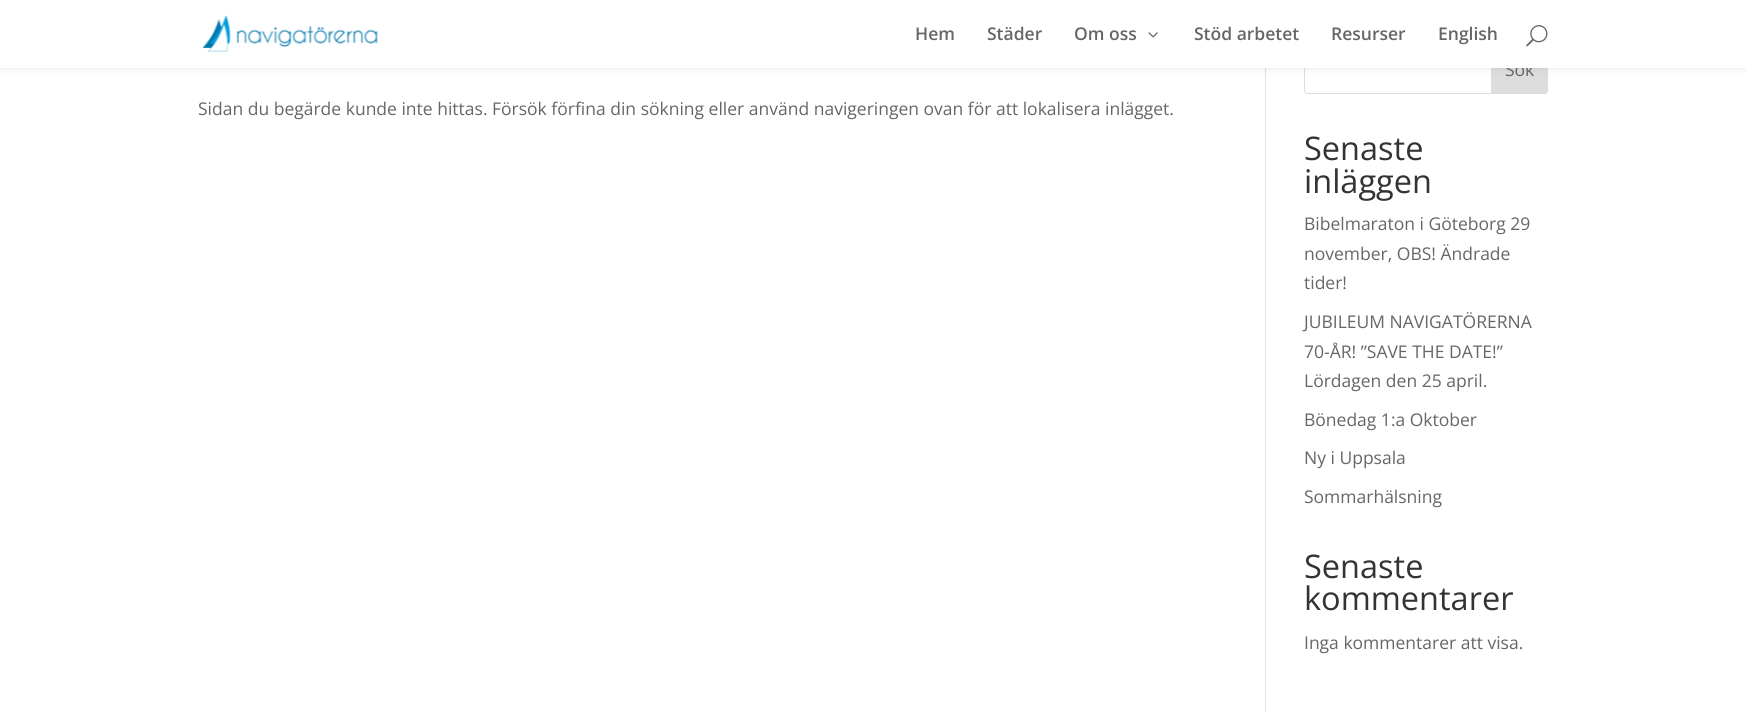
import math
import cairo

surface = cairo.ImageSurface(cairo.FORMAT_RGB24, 1746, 712)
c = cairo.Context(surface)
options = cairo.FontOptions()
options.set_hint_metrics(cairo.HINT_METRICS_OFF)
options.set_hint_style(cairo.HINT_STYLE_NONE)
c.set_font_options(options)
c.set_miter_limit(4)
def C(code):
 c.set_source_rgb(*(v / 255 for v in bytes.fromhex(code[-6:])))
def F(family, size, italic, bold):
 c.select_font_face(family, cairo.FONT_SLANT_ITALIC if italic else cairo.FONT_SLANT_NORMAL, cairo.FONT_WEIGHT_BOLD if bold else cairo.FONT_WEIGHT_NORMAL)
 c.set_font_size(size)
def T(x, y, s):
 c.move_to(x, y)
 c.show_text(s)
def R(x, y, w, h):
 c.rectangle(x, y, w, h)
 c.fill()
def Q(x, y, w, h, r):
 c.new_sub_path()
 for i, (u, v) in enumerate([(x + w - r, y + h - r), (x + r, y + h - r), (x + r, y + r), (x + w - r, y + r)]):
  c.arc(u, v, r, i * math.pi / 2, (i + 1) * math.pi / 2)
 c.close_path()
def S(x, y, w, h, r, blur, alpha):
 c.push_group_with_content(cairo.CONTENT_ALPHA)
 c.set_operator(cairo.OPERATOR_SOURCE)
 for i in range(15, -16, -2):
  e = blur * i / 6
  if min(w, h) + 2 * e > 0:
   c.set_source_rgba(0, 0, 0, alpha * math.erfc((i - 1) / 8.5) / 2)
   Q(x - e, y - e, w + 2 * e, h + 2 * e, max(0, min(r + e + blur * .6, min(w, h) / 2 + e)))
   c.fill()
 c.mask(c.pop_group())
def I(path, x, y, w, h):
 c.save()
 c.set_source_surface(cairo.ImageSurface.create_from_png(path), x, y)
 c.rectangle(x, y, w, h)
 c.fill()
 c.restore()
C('ffffff')
c.paint()
Q(1304.5,44.5,243,49,3.5)
C('dddddd')
c.set_line_width(1)
c.stroke()
c.new_path()
c.move_to(1491.5,44.5)
c.line_to(1544,44.5)
c.curve_to(1546,44.5,1547.5,46,1547.5,48)
c.line_to(1547.5,90)
c.curve_to(1547.5,92,1546,93.5,1544,93.5)
c.line_to(1491.5,93.5)
c.close_path()
c.fill_preserve()
c.stroke()
C('e2e2e2')
R(1265,68,1,644)
C('000000')
S(0,0,1746,68,0,4.5,.1)
F('Open Sans',17.5,0,0)
C('666666')
T(1505,76,'Sök')
C('ffffff')
R(0,0,1746,68)
I('1.png',202,15,176,37)
F('Open Sans SemiBold',17.5,0,0)
C('666666')
T(915,40,'Hem')
T(987,40,'Städer')
T(1074,40,'Om oss')
I('2.png',1148,32,10,6)
T(1194,40,'Stöd arbetet')
T(1331,40,'Resurser')
T(1438,40,'English')
I('3.png',1526,25,22,22)
F('Open Sans',17.5,0,0)
T(198,115,'Sidan du begärde kunde inte hittas. Försök förfina din sökning eller använd navigeringen ovan för att lokalisera inlägget.')
F('Open Sans',32.5,0,0)
C('333333')
T(1304,160,'Senaste')
T(1304,193,'inläggen')
F('Open Sans',17.5,0,0)
C('666666')
T(1304,230,'Bibelmaraton i Göteborg 29')
T(1304,260,'november, OBS! Ändrade')
T(1304,289,'tider!')
T(1304,328,'JUBILEUM NAVIGATÖRERNA')
T(1304,358,'70-ÅR! ”SAVE THE DATE!”')
T(1304,387,'Lördagen den 25 april.')
T(1304,426,'Bönedag 1:a Oktober')
T(1304,464,'Ny i Uppsala')
T(1304,503,'Sommarhälsning')
F('Open Sans',32.5,0,0)
C('333333')
T(1304,578,'Senaste')
T(1304,610,'kommentarer')
F('Open Sans',17.5,0,0)
C('666666')
T(1304,649,'Inga kommentarer att visa.')
surface.write_to_png('o.png')
